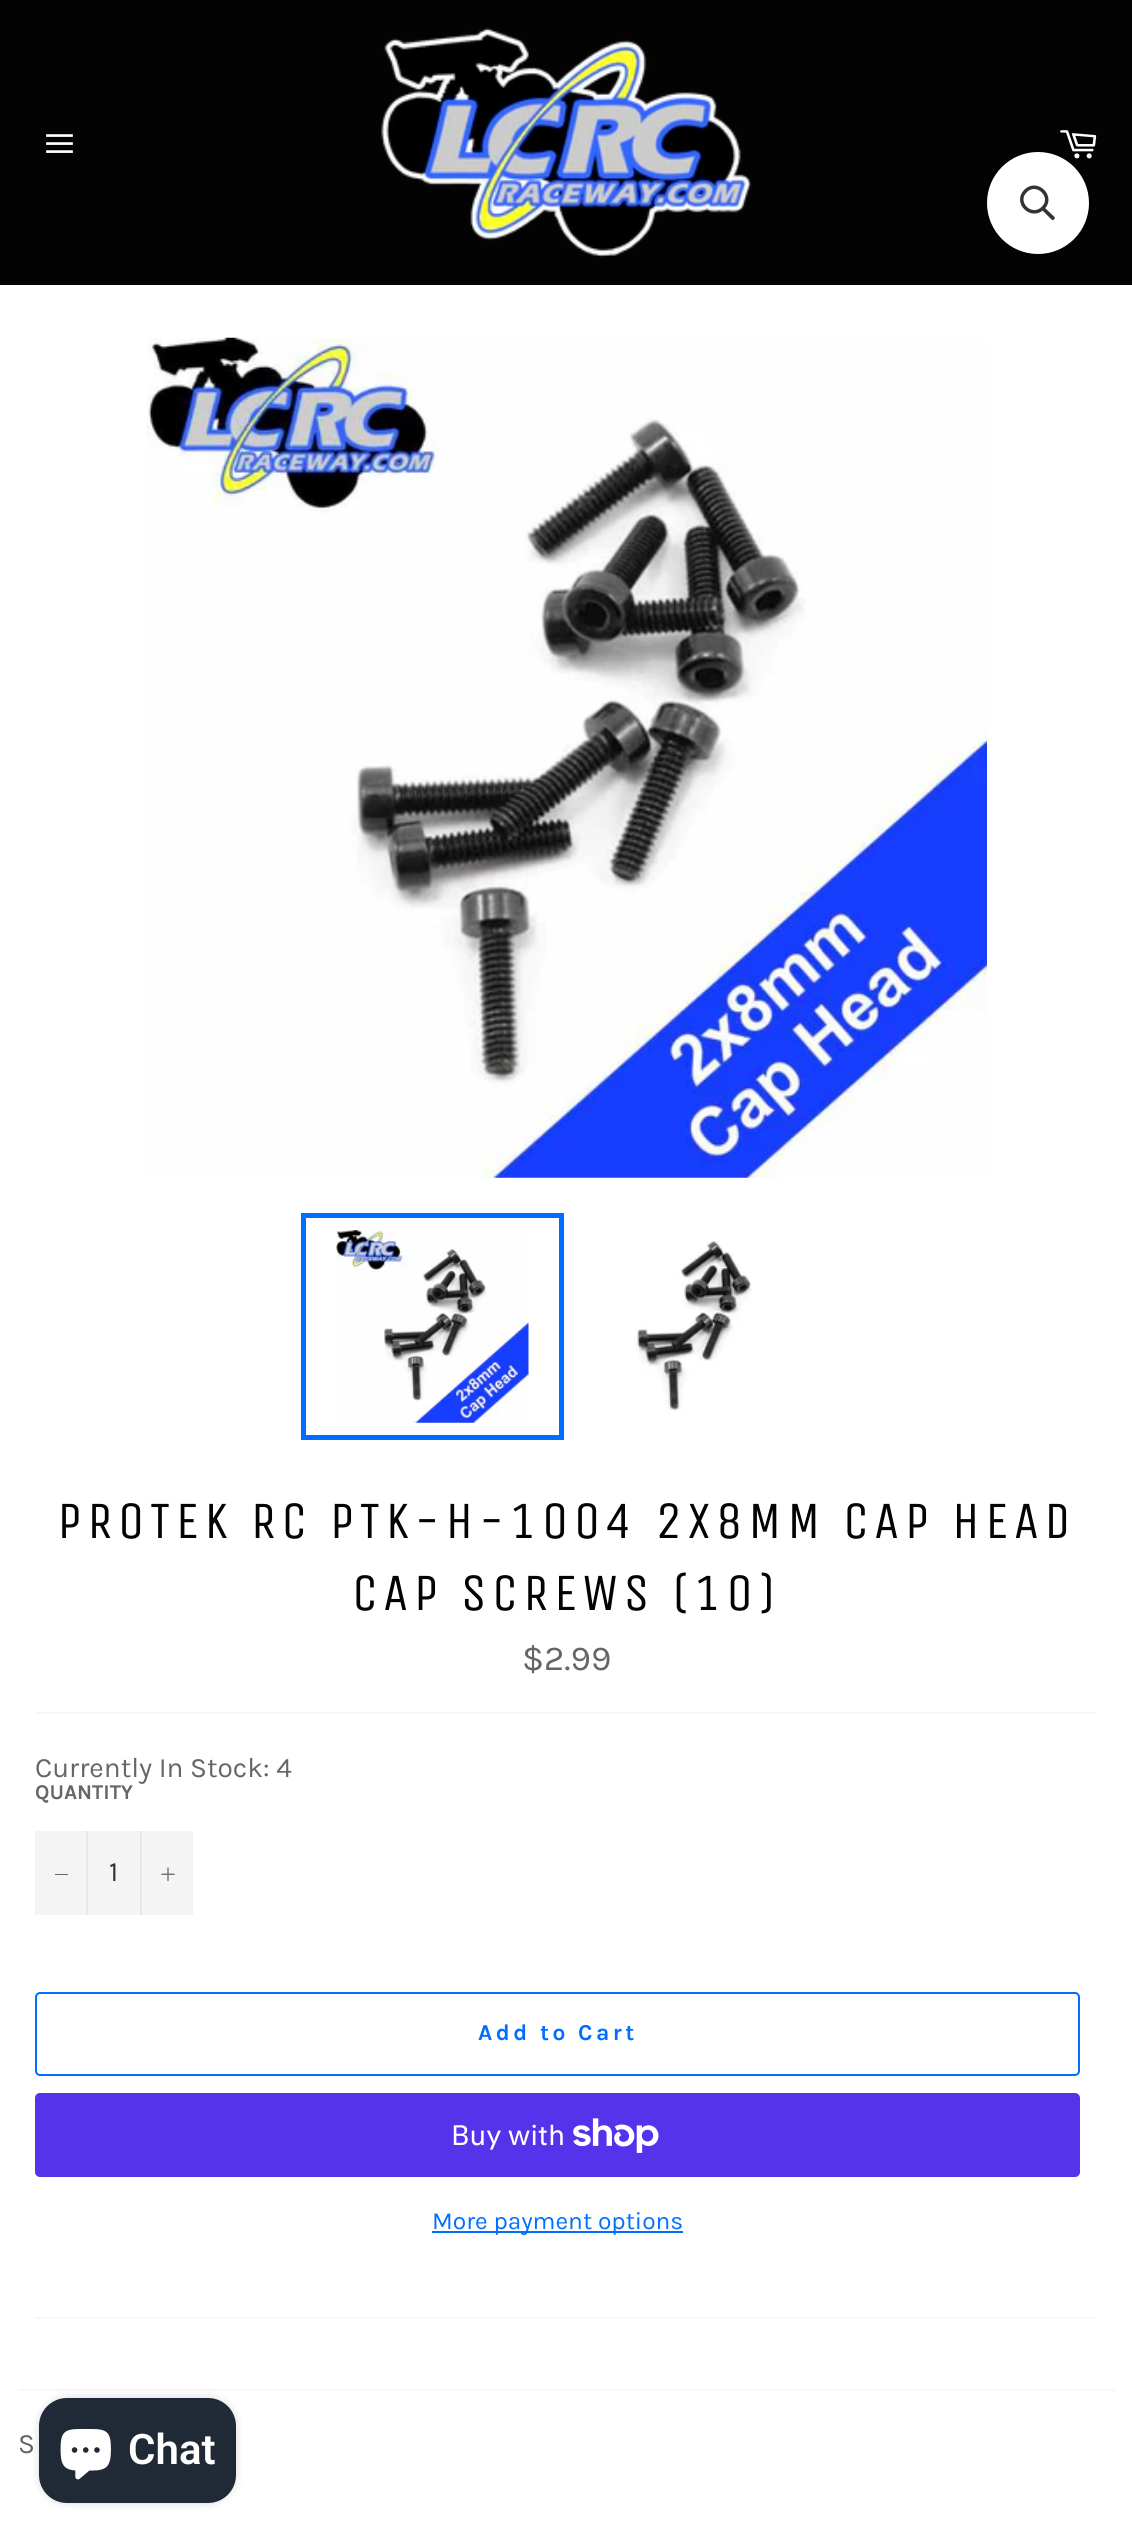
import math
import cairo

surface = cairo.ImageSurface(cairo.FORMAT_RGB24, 1132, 2539)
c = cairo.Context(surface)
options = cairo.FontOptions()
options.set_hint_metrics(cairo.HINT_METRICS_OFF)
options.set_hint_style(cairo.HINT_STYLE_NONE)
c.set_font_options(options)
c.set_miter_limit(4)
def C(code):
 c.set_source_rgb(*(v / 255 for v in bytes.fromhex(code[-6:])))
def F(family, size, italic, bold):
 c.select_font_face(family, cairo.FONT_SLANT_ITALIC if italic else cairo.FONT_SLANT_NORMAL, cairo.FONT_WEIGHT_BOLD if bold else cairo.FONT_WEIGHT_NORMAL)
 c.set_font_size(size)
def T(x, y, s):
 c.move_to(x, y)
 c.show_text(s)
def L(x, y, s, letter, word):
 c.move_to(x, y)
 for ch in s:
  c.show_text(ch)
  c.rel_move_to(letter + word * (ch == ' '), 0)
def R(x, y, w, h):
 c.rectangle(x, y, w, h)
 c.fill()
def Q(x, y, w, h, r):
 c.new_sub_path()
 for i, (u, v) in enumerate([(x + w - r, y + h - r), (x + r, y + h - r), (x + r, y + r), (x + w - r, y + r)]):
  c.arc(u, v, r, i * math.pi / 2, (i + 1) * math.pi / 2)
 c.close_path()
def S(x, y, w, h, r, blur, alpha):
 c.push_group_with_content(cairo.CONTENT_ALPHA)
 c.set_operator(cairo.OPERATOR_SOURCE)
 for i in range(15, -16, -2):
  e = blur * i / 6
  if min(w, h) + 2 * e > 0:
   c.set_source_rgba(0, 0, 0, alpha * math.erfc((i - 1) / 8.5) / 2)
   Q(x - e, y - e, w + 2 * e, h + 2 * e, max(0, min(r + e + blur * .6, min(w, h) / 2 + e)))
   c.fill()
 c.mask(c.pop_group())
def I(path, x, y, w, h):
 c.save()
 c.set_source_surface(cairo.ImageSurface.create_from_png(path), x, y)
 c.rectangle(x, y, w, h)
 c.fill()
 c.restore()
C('030303')
c.paint()
I('1.png',46,134,27,19)
I('2.png',381,27,371,231)
I('3.png',1060,130,37,29)
C('ffffff')
c.arc(1038,203,51,0,2 * math.pi)
c.fill()
c.new_path()
c.move_to(1025.5,191)
c.curve_to(1037,179.5,1054.5,197,1043,208)
c.curve_to(1031.5,219.5,1014,202.5,1025.5,191)
c.close_path()
C('333333')
c.set_line_width(3.5)
c.stroke()
c.new_path()
c.move_to(1041.5,209.5)
c.line_to(1044,207)
c.line_to(1054.5,217)
c.curve_to(1055.5,219,1053,221,1051.5,219.5)
c.close_path()
c.fill()
C('ffffff')
R(0,285,1132,2254)
I('4.png',147,337,840,841)
I('5.png',336,1230,193,193)
c.rectangle(303.5,1215.5,258,222)
C('006eff')
c.set_line_width(5)
c.stroke()
I('6.png',635,1241,117,170)
F('Unica One',52.5,0,0)
C('030303')
L(57,1538,'PROTEK RC PTK-H-1004 2X8MM CAP HEAD',5.25,0)
L(352,1610,'CAP SCREWS (10)',5.25,0)
F('Karla',35,0,0)
C('666666')
T(522,1670,'$2.99')
C('f7f7f7')
R(35,1712,1062,2)
F('Karla',28,0,0)
C('666666')
T(35,1777,'Currently In Stock: 4')
F('Karla',21,0,1)
T(35,1799,'QUANTITY')
C('f4f4f4')
R(35,1831,158,84)
C('e7e7e7')
R(86,1831,2,84)
C('666666')
R(55,1874,13,1)
F('Karla',28,0,0)
C('333333')
T(109,1881,'1')
C('e7e7e7')
R(140,1831,2,84)
I('7.png',161,1867,14,14)
Q(36,1993,1043,82,4)
C('006eff')
c.set_line_width(2)
c.stroke()
F('Karla',22.75,0,1)
L(478,2040,'Add to Cart',3.5,0)
C('5433eb')
Q(35,2093,1045,84,5)
c.fill()
F('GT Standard',28,0,0)
C('ffffff')
T(451,2145,'Buy with')
I('8.png',573,2118,86,35)
C('006eff')
R(432,2231,251,2)
F('Karla',24.5,0,0)
T(432,2229,'More payment options')
C('f7f7f7')
R(35,2317,1062,2)
R(18,2389,1097,2)
F('Karla',28,0,0)
C('666666')
T(18,2453,'S')
C('000000')
S(39,2398,197,105,28,4.5,.15)
C('202a36')
Q(39,2398,197,105,28)
c.fill()
I('9.png',60,2429,51,51)
F('Roboto SemiBold',42,0,0)
C('ffffff')
T(128,2464,'Chat')
surface.write_to_png('o.png')
